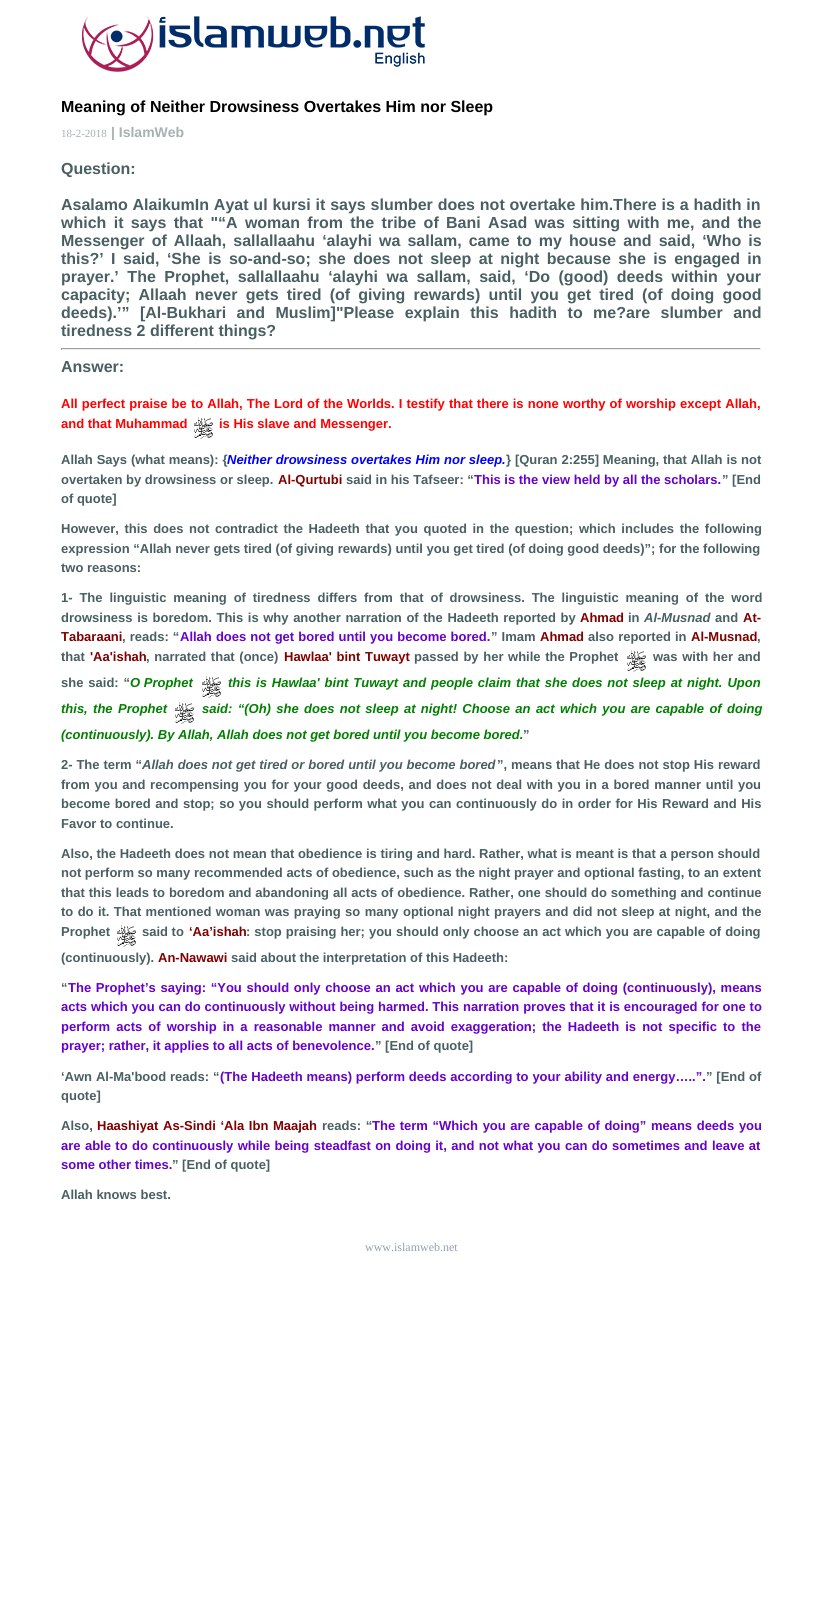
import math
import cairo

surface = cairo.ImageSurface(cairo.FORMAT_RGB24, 822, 1619)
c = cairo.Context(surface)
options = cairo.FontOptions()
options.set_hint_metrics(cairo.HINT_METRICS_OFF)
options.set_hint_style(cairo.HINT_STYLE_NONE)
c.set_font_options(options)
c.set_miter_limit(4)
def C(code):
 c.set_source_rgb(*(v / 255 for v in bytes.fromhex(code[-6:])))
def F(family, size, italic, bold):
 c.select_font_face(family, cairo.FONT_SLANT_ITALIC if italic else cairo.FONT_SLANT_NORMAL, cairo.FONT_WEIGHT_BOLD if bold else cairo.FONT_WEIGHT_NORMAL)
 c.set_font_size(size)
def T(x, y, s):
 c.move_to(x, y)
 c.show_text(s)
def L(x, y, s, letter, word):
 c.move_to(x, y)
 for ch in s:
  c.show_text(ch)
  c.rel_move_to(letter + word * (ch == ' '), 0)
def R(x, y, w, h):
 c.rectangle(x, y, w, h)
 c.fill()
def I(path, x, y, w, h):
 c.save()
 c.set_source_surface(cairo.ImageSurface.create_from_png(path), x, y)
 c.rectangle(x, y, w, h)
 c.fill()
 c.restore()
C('ffffff')
c.paint()
I('1.png',82,16,343,56)
F('Liberation Sans',16,0,1)
C('000000')
T(61,112,'Meaning of Neither Drowsiness Overtakes Him nor Sleep')
F('Liberation Serif',11,0,0)
C('a6b1b2')
T(61,137,'18-2-2018')
F('Liberation Sans',14,0,1)
T(111,137,'| IslamWeb')
F('Liberation Sans',16,0,1)
C('495f62')
T(61,174,'Question:')
L(61,210,'Asalamo AlaikumIn Ayat ul kursi it says slumber does not overtake him.There is a hadith in',0,.4)
L(61,228,'which it says that "“A woman from the tribe of Bani Asad was sitting with me, and the',0,2.9)
L(61,246,'Messenger of Allaah, sallallaahu ʻalayhi wa sallam, came to my house and said, ‘Who is',0,2.6)
L(61,264,'this?’ I said, ‘She is so-and-so; she does not sleep at night because she is engaged in',0,3)
L(61,282,'prayer.’ The Prophet, sallallaahu ʻalayhi wa sallam, said, ‘Do (good) deeds within your',0,4.1)
L(61,300,'capacity; Allaah never gets tired (of giving rewards) until you get tired (of doing good',0,3.75)
L(61,318,'deeds).’” [Al-Bukhari and Muslim]"Please explain this hadith to me?are slumber and',0,6)
T(61,336,'tiredness 2 different things?')
C('9f9f9f')
R(61,348,700,1)
C('eeeeee')
R(760,348,1,2)
R(61,349,700,1)
C('9f9f9f')
R(61,348,1,2)
C('495f62')
T(61,372,'Answer:')
F('Liberation Sans',13,0,1)
C('ff0000')
L(61,408,'All perfect praise be to Allah, The Lord of the Worlds. I testify that there is none worthy of worship except Allah,',0,.5)
T(61,428,'and that Muhammad')
I('2.png',194,417,19,22)
T(219,428,'is His slave and Messenger.')
C('495f62')
L(61,464,'Allah Says (what means): {',0,.25)
F('Liberation Sans',13,1,1)
C('0000ff')
L(227,464,'Neither drowsiness overtakes Him nor sleep.',0,.25)
F('Liberation Sans',13,0,1)
C('495f62')
L(506,464,'} [Quran 2:255] Meaning, that Allah is not',0,.25)
T(61,484,'overtaken by drowsiness or sleep.')
C('800000')
T(278,484,'Al-Qurtubi')
C('495f62')
T(346,484,'said in his Tafseer: “')
C('6600cc')
T(474,484,'This is the view held by all the scholars.')
C('495f62')
T(722,484,'” [End')
T(61,503,'of quote]')
L(61,533,'However, this does not contradict the Hadeeth that you quoted in the question; which includes the following',0,2)
T(61,553,'expression “Allah never gets tired (of giving rewards) until you get tired (of doing good deeds)”; for the following')
T(61,572,'two reasons:')
L(61,602,'1- The linguistic meaning of tiredness differs from that of drowsiness. The linguistic meaning of the word',0,3.25)
L(61,622,'drowsiness is boredom. This is why another narration of the Hadeeth reported by',0,1)
C('800000')
T(580,622,'Ahmad')
C('495f62')
T(628,622,'in')
F('Liberation Sans',13,1,1)
T(644,622,'Al-Musnad')
F('Liberation Sans',13,0,1)
T(715,622,'and')
C('800000')
T(743,622,'At-')
T(61,641,'Tabaraani')
C('495f62')
L(122,641,', reads: “',0,.5)
C('6600cc')
L(180,641,'Allah does not get bored until you become bored.',0,.5)
C('495f62')
L(491,641,'” Imam',0,.5)
C('800000')
T(540,641,'Ahmad')
C('495f62')
L(588,641,'also reported in',0,.5)
C('800000')
T(691,641,'Al-Musnad')
C('495f62')
T(757,641,',')
T(61,661,'that')
C('800000')
T(90,661,'\'Aa\'ishah')
C('495f62')
L(146,661,', narrated that (once)',0,1)
C('800000')
L(284,661,'Hawlaa\' bint Tuwayt',0,1)
C('495f62')
L(414,661,'passed by her while the Prophet',0,1)
I('2.png',627,650,19,22)
L(653,661,'was with her and',0,1)
L(61,687,'she said: “',0,1.3)
F('Liberation Sans',13,1,1)
C('008000')
T(130,687,'O Prophet')
I('2.png',202,676,19,22)
L(228,687,'this is Hawlaa\' bint Tuwayt and people claim that she does not sleep at night. Upon',0,1.3)
L(61,713,'this, the Prophet',0,1.75)
I('2.png',175,702,19,22)
L(202,713,'said: “(Oh) she does not sleep at night! Choose an act which you are capable of doing',0,1.75)
T(61,739,'(continuously). By Allah, Allah does not get bored until you become bored.')
F('Liberation Sans',13,0,1)
C('495f62')
T(523,739,'”')
L(61,769,'2- The term “',0,.25)
F('Liberation Sans',13,1,1)
L(142,769,'Allah does not get tired or bored until you become bored',0,.25)
F('Liberation Sans',13,0,1)
L(497,769,'”, means that He does not stop His reward',0,.25)
L(61,789,'from you and recompensing you for your good deeds, and does not deal with you in a bored manner until you',0,1.05)
L(61,808,'become bored and stop; so you should perform what you can continuously do in order for His Reward and His',0,.9)
T(61,828,'Favor to continue.')
L(61,858,'Also, the Hadeeth does not mean that obedience is tiring and hard. Rather, what is meant is that a person should',0,.1)
T(61,877,'not perform so many recommended acts of obedience, such as the night prayer and optional fasting, to an extent')
L(61,897,'that this leads to boredom and abandoning all acts of obedience. Rather, one should do something and continue',0,.25)
L(61,916,'to do it. That mentioned woman was praying so many optional night prayers and did not sleep at night, and the',0,.75)
T(61,936,'Prophet')
I('2.png',117,925,19,22)
T(142,936,'said to')
C('800000')
T(189,936,'‘Aa’ishah')
C('495f62')
L(246,936,': stop praising her; you should only choose an act which you are capable of doing',0,.4)
T(61,962,'(continuously).')
C('800000')
T(158,962,'An-Nawawi')
C('495f62')
T(231,962,'said about the interpretation of this Hadeeth:')
T(61,992,'“')
C('6600cc')
L(68,992,'The Prophet’s saying: “You should only choose an act which you are capable of doing (continuously), means',0,1.1)
L(61,1011,'acts which you can do continuously without being harmed. This narration proves that it is encouraged for one to',0,.25)
L(61,1031,'perform acts of worship in a reasonable manner and avoid exaggeration; the Hadeeth is not specific to the',0,2.5)
T(61,1050,'prayer; rather, it applies to all acts of benevolence.')
C('495f62')
T(375,1050,'” [End of quote]')
L(61,1081,'‘Awn Al-Ma\'bood reads: “',0,.25)
C('6600cc')
L(220,1081,'(The Hadeeth means) perform deeds according to your ability and energy…..”.',0,.25)
C('495f62')
L(706,1081,'” [End of',0,.25)
T(61,1100,'quote]')
T(61,1130,'Also,')
C('800000')
L(97,1130,'Haashiyat As-Sindi ‘Ala Ibn Maajah',0,1)
C('495f62')
L(322,1130,'reads: “',0,1)
C('6600cc')
L(372,1130,'The term “Which you are capable of doing” means deeds you',0,1)
L(61,1150,'are able to do continuously while being steadfast on doing it, and not what you can do sometimes and leave at',0,.8)
T(61,1169,'some other times.')
C('495f62')
T(172,1169,'” [End of quote]')
T(61,1199,'Allah knows best.')
F('Liberation Serif',12,0,0)
C('969fb4')
T(365,1251,'www.islamweb.net')
surface.write_to_png('o.png')
